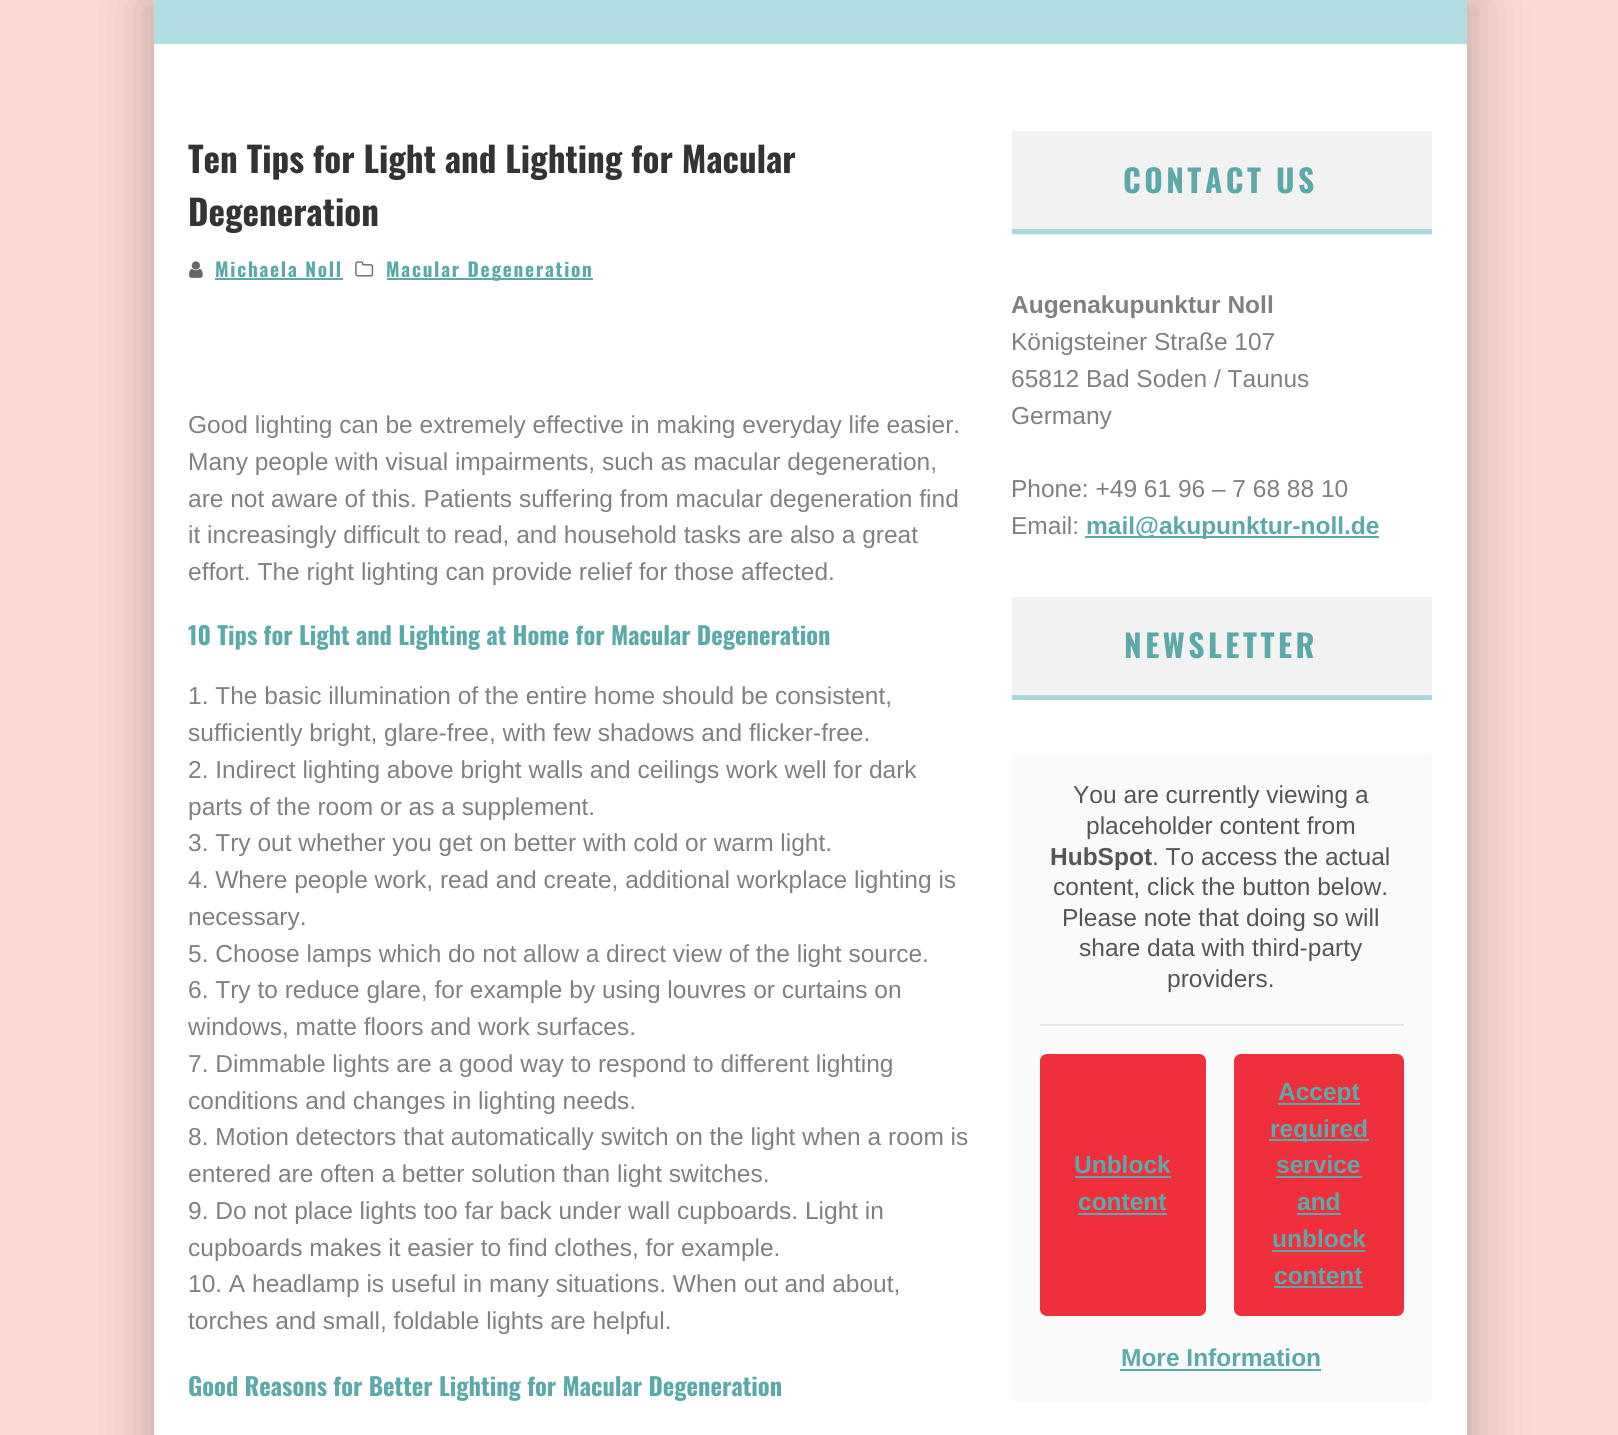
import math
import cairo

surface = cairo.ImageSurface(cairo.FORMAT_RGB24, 1618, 1435)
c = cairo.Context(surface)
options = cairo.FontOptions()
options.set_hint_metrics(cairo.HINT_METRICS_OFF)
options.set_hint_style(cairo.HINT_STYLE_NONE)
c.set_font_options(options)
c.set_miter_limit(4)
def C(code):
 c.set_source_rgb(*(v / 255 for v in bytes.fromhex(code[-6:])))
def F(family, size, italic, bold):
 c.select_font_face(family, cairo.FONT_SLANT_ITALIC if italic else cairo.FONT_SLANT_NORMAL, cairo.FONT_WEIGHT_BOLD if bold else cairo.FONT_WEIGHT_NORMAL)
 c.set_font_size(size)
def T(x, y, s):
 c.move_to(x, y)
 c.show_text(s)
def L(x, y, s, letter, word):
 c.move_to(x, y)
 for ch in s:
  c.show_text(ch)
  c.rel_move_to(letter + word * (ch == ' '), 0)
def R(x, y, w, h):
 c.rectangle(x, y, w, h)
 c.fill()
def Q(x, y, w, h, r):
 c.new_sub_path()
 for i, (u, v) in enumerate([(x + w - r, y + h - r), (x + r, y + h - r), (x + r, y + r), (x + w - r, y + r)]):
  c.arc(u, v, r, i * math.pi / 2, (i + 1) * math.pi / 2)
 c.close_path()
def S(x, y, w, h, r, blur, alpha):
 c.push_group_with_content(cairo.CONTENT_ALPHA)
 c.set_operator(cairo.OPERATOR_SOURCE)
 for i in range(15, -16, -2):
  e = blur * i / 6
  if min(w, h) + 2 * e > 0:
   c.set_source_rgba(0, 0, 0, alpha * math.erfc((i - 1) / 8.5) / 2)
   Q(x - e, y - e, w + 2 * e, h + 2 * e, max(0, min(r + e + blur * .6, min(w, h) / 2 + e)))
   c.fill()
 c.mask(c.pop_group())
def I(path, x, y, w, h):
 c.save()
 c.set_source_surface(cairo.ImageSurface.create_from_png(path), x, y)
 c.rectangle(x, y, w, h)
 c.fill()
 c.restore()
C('fddbd5')
c.paint()
C('000000')
S(137,0,1312,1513,0,26,.15)
S(172,0,1312,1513,0,26,.15)
C('afdde1')
R(154,0,1313,44)
C('ffffff')
R(154,44,1313,1391)
F('Oswald',35,0,1)
C('333333')
T(188,173,'Ten Tips for Light and Lighting for Macular')
T(188,226,'Degeneration')
I('1.png',189,261,14,17)
F('Oswald',19.25,0,1)
C('5ca9a9')
L(215,277,'Michaela Noll',1.75,0)
R(215,278,128,2)
I('2.png',355,261,19,16)
R(387,278,206,2)
L(386,277,'Macular Degeneration',1.75,0)
F('Liberation Sans',24.5,0,0)
C('808080')
T(188,433,'Good lighting can be extremely effective in making everyday life easier.')
T(188,470,'Many people with visual impairments, such as macular degeneration,')
T(188,507,'are not aware of this. Patients suffering from macular degeneration find')
T(188,543,'it increasingly difficult to read, and household tasks are also a great')
T(188,580,'effort. The right lighting can provide relief for those affected.')
F('Oswald',24.5,0,1)
C('5ca9a9')
T(188,645,'10 Tips for Light and Lighting at Home for Macular Degeneration')
F('Liberation Sans',24.5,0,0)
C('808080')
T(188,704,'1. The basic illumination of the entire home should be consistent,')
T(188,741,'sufficiently bright, glare-free, with few shadows and flicker-free.')
T(188,778,'2. Indirect lighting above bright walls and ceilings work well for dark')
T(188,815,'parts of the room or as a supplement.')
T(188,851,'3. Try out whether you get on better with cold or warm light.')
T(188,888,'4. Where people work, read and create, additional workplace lighting is')
T(188,925,'necessary.')
T(188,962,'5. Choose lamps which do not allow a direct view of the light source.')
T(188,998,'6. Try to reduce glare, for example by using louvres or curtains on')
T(188,1035,'windows, matte floors and work surfaces.')
T(188,1072,'7. Dimmable lights are a good way to respond to different lighting')
T(188,1109,'conditions and changes in lighting needs.')
T(188,1145,'8. Motion detectors that automatically switch on the light when a room is')
T(188,1182,'entered are often a better solution than light switches.')
T(188,1219,'9. Do not place lights too far back under wall cupboards. Light in')
T(188,1256,'cupboards makes it easier to find clothes, for example.')
T(188,1292,'10. A headlamp is useful in many situations. When out and about,')
T(188,1329,'torches and small, foldable lights are helpful.')
F('Oswald',24.5,0,1)
C('5ca9a9')
T(188,1396,'Good Reasons for Better Lighting for Macular Degeneration')
C('f2f2f2')
R(1012,131,420,104)
C('aad7dc')
R(1012,229,420,5)
F('Oswald',31.5,0,1)
C('5ca9a9')
L(1123,193,'CONTACT US',3.5,0)
F('Liberation Sans',24.5,0,1)
C('808080')
T(1011,313,'Augenakupunktur Noll')
F('Liberation Sans',24.5,0,0)
T(1011,350,'Königsteiner Straße 107')
c.save()
c.rectangle(1012,131,420,413)
c.clip()
T(1011,387,'65812 Bad Soden / Taunus')
c.restore()
T(1011,424,'Germany')
T(1011,497,'Phone: +49 61 96 – 7 68 88 10')
T(1011,534,'Email:')
C('5ca9a9')
R(1085,536,294,2)
F('Liberation Sans',24.5,0,1)
T(1086,534,'mail@akupunktur-noll.de')
C('f2f2f2')
R(1012,597,420,98)
C('aad7dc')
R(1012,695,420,5)
F('Oswald',31.5,0,1)
C('5ca9a9')
L(1124,658,'NEWSLETTER',3.5,0)
C('fafafa')
Q(1012,753,420,649,7)
c.fill()
C('e5e5e5')
R(1040,1024,364,2)
F('Liberation Sans',24.5,0,0)
C('555555')
T(1073,803,'You are currently viewing a')
T(1086,834,'placeholder content from')
F('Liberation Sans',24.5,0,1)
T(1050,865,'HubSpot')
F('Liberation Sans',24.5,0,0)
T(1152,865,'. To access the actual')
T(1053,895,'content, click the button below.')
T(1062,926,'Please note that doing so will')
T(1079,956,'share data with third-party')
T(1167,987,'providers.')
C('ef303c')
Q(1040,1054,166,262,7)
c.fill()
F('Liberation Sans',24.5,0,1)
C('5ca9a9')
T(1074,1173,'Unblock')
R(1075,1176,96,2)
T(1078,1210,'content')
R(1078,1213,89,2)
C('ef303c')
Q(1234,1054,170,262,7)
c.fill()
C('5ca9a9')
R(1278,1103,82,2)
T(1278,1100,'Accept')
R(1269,1139,100,2)
T(1270,1137,'required')
T(1276,1173,'service')
R(1276,1176,86,2)
T(1297,1210,'and')
R(1297,1213,44,2)
T(1272,1247,'unblock')
R(1272,1250,93,2)
T(1274,1284,'content')
R(1274,1286,89,2)
T(1121,1366,'More Information')
R(1120,1369,201,2)
surface.write_to_png('o.png')
